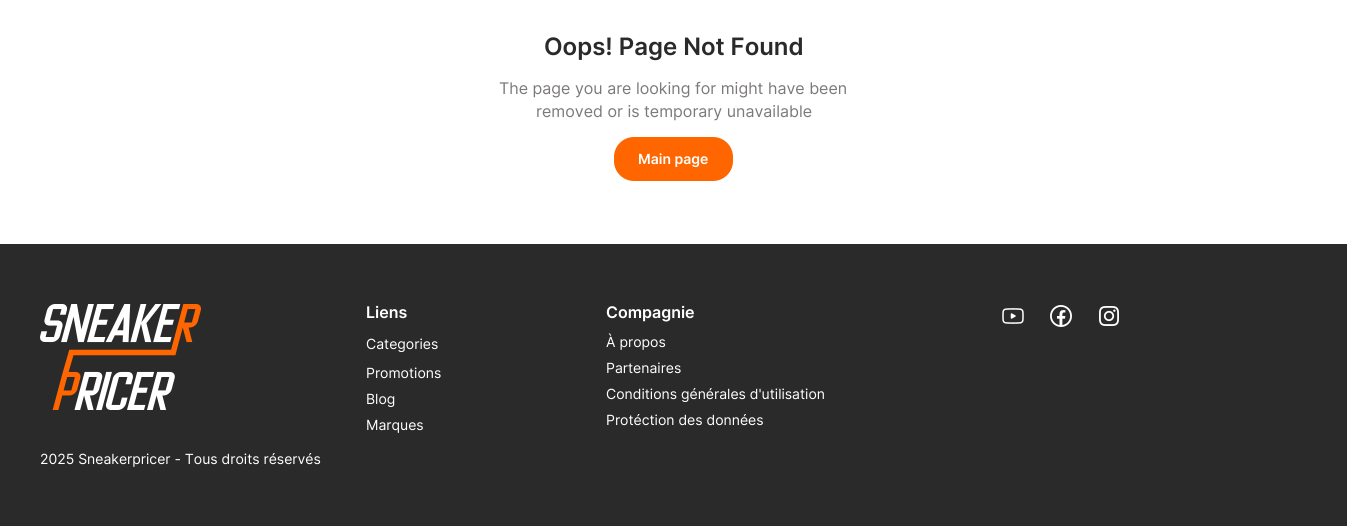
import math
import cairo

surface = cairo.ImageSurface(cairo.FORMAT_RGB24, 1347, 526)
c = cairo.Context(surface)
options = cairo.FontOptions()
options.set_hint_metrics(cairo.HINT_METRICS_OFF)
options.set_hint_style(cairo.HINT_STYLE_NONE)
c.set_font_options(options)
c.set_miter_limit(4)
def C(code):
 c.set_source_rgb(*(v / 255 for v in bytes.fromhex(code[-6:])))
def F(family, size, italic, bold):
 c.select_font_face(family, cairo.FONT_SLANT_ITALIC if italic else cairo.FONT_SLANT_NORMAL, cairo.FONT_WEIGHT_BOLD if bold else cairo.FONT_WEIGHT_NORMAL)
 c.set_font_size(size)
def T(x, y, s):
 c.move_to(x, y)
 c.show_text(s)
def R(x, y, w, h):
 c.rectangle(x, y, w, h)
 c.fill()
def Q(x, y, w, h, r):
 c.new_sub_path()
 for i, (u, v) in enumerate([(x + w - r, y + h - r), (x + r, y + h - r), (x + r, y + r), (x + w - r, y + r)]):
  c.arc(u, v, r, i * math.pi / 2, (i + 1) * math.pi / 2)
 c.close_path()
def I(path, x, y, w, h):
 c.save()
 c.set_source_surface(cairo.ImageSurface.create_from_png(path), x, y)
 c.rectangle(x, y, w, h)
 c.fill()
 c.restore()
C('ffffff')
c.paint()
F('Inter SemiBold',24,0,0)
C('2a2a2a')
T(544,55,'Oops! Page Not Found')
F('Inter',16,0,0)
C('7d7979')
T(499,94,'The page you are looking for might have been')
T(536,117,'removed or is temporary unavailable')
C('ff6600')
Q(614,137,119,44,20)
c.fill()
F('Inter SemiBold',14,0,0)
C('ffffff')
T(638,164,'Main page')
C('2a2a2a')
R(0,244,1347,282)
I('1.png',40,304,161,106)
F('Inter SemiBold',16,0,0)
C('ffffff')
T(366,318,'Liens')
F('Inter',14,0,0)
T(366,349,'Categories')
T(366,378,'Promotions')
T(366,404,'Blog')
T(366,430,'Marques')
F('Inter SemiBold',16,0,0)
T(606,318,'Compagnie')
F('Inter',14,0,0)
T(606,347,'À propos')
T(606,373,'Partenaires')
T(606,399,'Conditions générales d\'utilisation')
T(606,425,'Protéction des données')
I('2.png',1002,308,22,16)
I('3.png',1050,305,22,22)
I('4.png',1099,306,20,20)
T(40,464,'2025 Sneakerpricer - Tous droits réservés')
surface.write_to_png('o.png')
